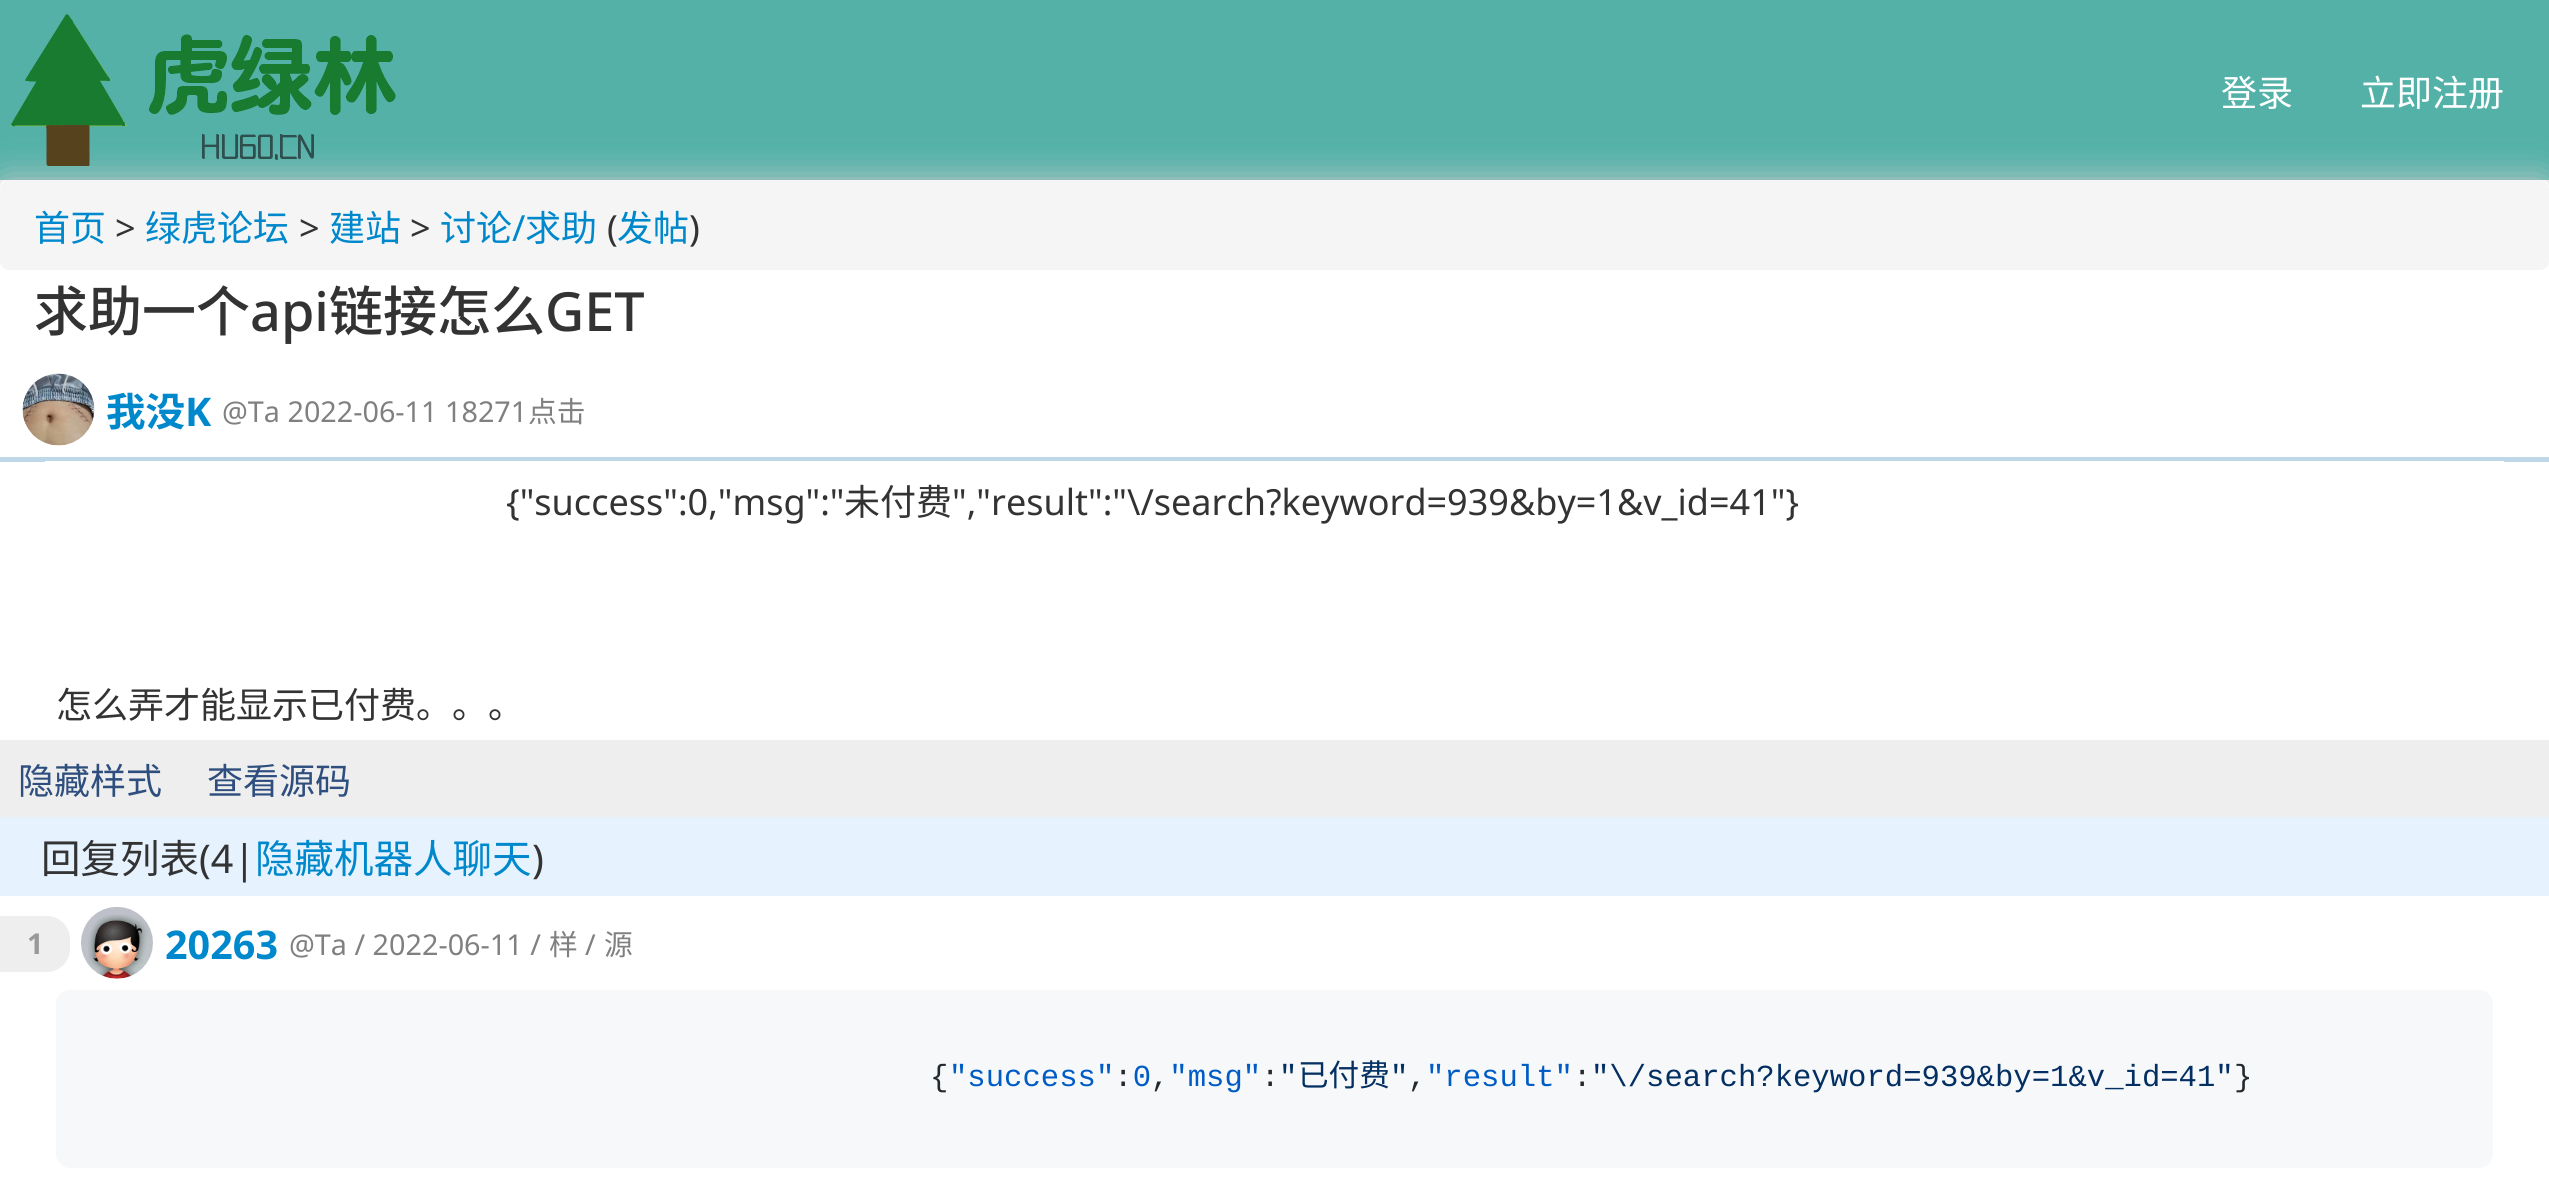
import math
import cairo

surface = cairo.ImageSurface(cairo.FORMAT_RGB24, 2549, 1192)
c = cairo.Context(surface)
options = cairo.FontOptions()
options.set_hint_metrics(cairo.HINT_METRICS_OFF)
options.set_hint_style(cairo.HINT_STYLE_NONE)
c.set_font_options(options)
c.set_miter_limit(4)
def C(code):
 c.set_source_rgb(*(v / 255 for v in bytes.fromhex(code[-6:])))
def F(family, size, italic, bold):
 c.select_font_face(family, cairo.FONT_SLANT_ITALIC if italic else cairo.FONT_SLANT_NORMAL, cairo.FONT_WEIGHT_BOLD if bold else cairo.FONT_WEIGHT_NORMAL)
 c.set_font_size(size)
def T(x, y, s):
 c.move_to(x, y)
 c.show_text(s)
def R(x, y, w, h):
 c.rectangle(x, y, w, h)
 c.fill()
def Q(x, y, w, h, r):
 c.new_sub_path()
 for i, (u, v) in enumerate([(x + w - r, y + h - r), (x + r, y + h - r), (x + r, y + r), (x + w - r, y + r)]):
  c.arc(u, v, r, i * math.pi / 2, (i + 1) * math.pi / 2)
 c.close_path()
def S(x, y, w, h, r, blur, alpha):
 c.push_group_with_content(cairo.CONTENT_ALPHA)
 c.set_operator(cairo.OPERATOR_SOURCE)
 for i in range(15, -16, -2):
  e = blur * i / 6
  if min(w, h) + 2 * e > 0:
   c.set_source_rgba(0, 0, 0, alpha * math.erfc((i - 1) / 8.5) / 2)
   Q(x - e, y - e, w + 2 * e, h + 2 * e, max(0, min(r + e + blur * .6, min(w, h) / 2 + e)))
   c.fill()
 c.mask(c.pop_group())
def I(path, x, y, w, h):
 c.save()
 c.set_source_surface(cairo.ImageSurface.create_from_png(path), x, y)
 c.rectangle(x, y, w, h)
 c.fill()
 c.restore()
C('ffffff')
c.paint()
C('53b1a8')
R(0,0,2549,180)
C('cccccc')
S(0,180,2549,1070,7,17,1)
I('1.png',10,14,386,152)
F('Noto Sans CJK SC',36,0,0)
C('ffffff')
T(2221,106,'登录')
T(2360,106,'立即注册')
Q(0,180,2549,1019,7)
c.fill()
C('f5f5f5')
Q(0,180,2549,90,9)
c.fill()
C('0088cc')
T(34,241,'首页')
F('Noto Sans',36,0,0)
C('333333')
T(115,241,'>')
F('Noto Sans CJK SC',36,0,0)
C('0088cc')
T(145,241,'绿虎论坛')
F('Noto Sans',36,0,0)
C('333333')
T(299,241,'>')
F('Noto Sans CJK SC',36,0,0)
C('0088cc')
T(329,241,'建站')
F('Noto Sans',36,0,0)
C('333333')
T(410,241,'>')
F('Noto Sans CJK SC',36,0,0)
C('0088cc')
T(440,241,'讨论')
F('Noto Sans',36,0,0)
T(512,241,'/')
F('Noto Sans CJK SC',36,0,0)
T(525,241,'求助')
F('Noto Sans',36,0,0)
C('333333')
T(607,241,'(')
F('Noto Sans CJK SC',36,0,0)
C('0088cc')
T(617,241,'发帖')
F('Noto Sans',36,0,0)
C('333333')
T(689,241,')')
F('Noto Sans CJK SC Medium',54,0,0)
T(34,331,'求助一个')
F('Noto Sans Medium',54,0,0)
T(250,331,'api')
F('Noto Sans CJK SC Medium',54,0,0)
T(329,331,'链接怎么')
F('Noto Sans Medium',54,0,0)
T(545,331,'GET')
C('bed8ea')
R(0,457,2549,5)
I('2.png',22,373,73,73)
F('Noto Sans CJK SC',39.5,0,1)
C('0088cc')
T(106,426,'我没')
F('Noto Sans',39.5,0,1)
T(185,426,'K')
F('Noto Sans',28.75,0,0)
C('808080')
T(222,422,'@Ta 2022-06-11 18271')
F('Noto Sans CJK SC',28.75,0,0)
T(528,422,'点击')
C('ffffff')
R(45,461,2459,1)
F('Noto Sans',36,0,0)
C('333333')
T(506,515,'{"success":0,"msg":"')
F('Noto Sans CJK SC',36,0,0)
T(844,515,'未付费')
F('Noto Sans',36,0,0)
T(952,515,'","result":"\\/search?keyword=939&by=1&v_id=41"}')
F('Noto Sans CJK SC',36,0,0)
T(56,718,'怎么弄才能显示已付费。。。')
C('eeeeee')
R(0,740,2549,77)
C('2e4e7e')
T(18,794,'隐藏样式')
T(207,794,'查看源码')
C('e6f3ff')
R(0,817,2549,79)
F('Noto Sans CJK SC',39.5,0,0)
C('333333')
T(41,873,'回复列表')
F('Noto Sans',39.5,0,0)
T(199,873,'(4|')
F('Noto Sans CJK SC',39.5,0,0)
C('0088cc')
T(255,873,'隐藏机器人聊天')
F('Noto Sans',39.5,0,0)
C('333333')
T(532,873,')')
C('eeeeee')
c.new_path()
c.move_to(0,916)
c.line_to(47,916)
c.curve_to(59.5,916,70,926.5,70,939)
c.line_to(70,949)
c.curve_to(70,961.5,59.5,972,47,972)
c.line_to(0,972)
c.close_path()
c.fill()
F('Noto Sans',28.75,0,1)
C('999999')
T(27,954,'1')
I('3.png',81,907,72,72)
F('Noto Sans',39.5,0,1)
C('0088cc')
T(165,959,'20263')
F('Noto Sans',28.75,0,0)
C('808080')
T(289,955,'@Ta / 2022-06-11 /')
F('Noto Sans CJK SC',28.75,0,0)
T(549,955,'样')
F('Noto Sans',28.75,0,0)
T(585,955,'/')
F('Noto Sans CJK SC',28.75,0,0)
T(604,955,'源')
C('f6f8fa')
Q(56,990,2437,178,14)
c.fill()
F('Liberation Mono',30.6,0,0)
C('24292e')
T(930,1086,'{')
C('005cc5')
T(949,1086,'"success" 0 "msg"')
C('032f62')
T(1279,1086,'"')
F('Noto Sans Mono CJK SC',30.6,0,0)
T(1298,1086,'已付费')
F('Liberation Mono',30.6,0,0)
T(1390,1086,'"')
C('005cc5')
T(1426,1086,'"result"')
C('032f62')
T(1591,1086,'"\\/search?keyword=939&by=1&v_id=41"')
C('24292e')
T(2234,1086,'}')
T(1114,1086,': ,')
T(1261,1086,':')
T(1408,1086,',')
T(1573,1086,':')
surface.write_to_png('o.png')
